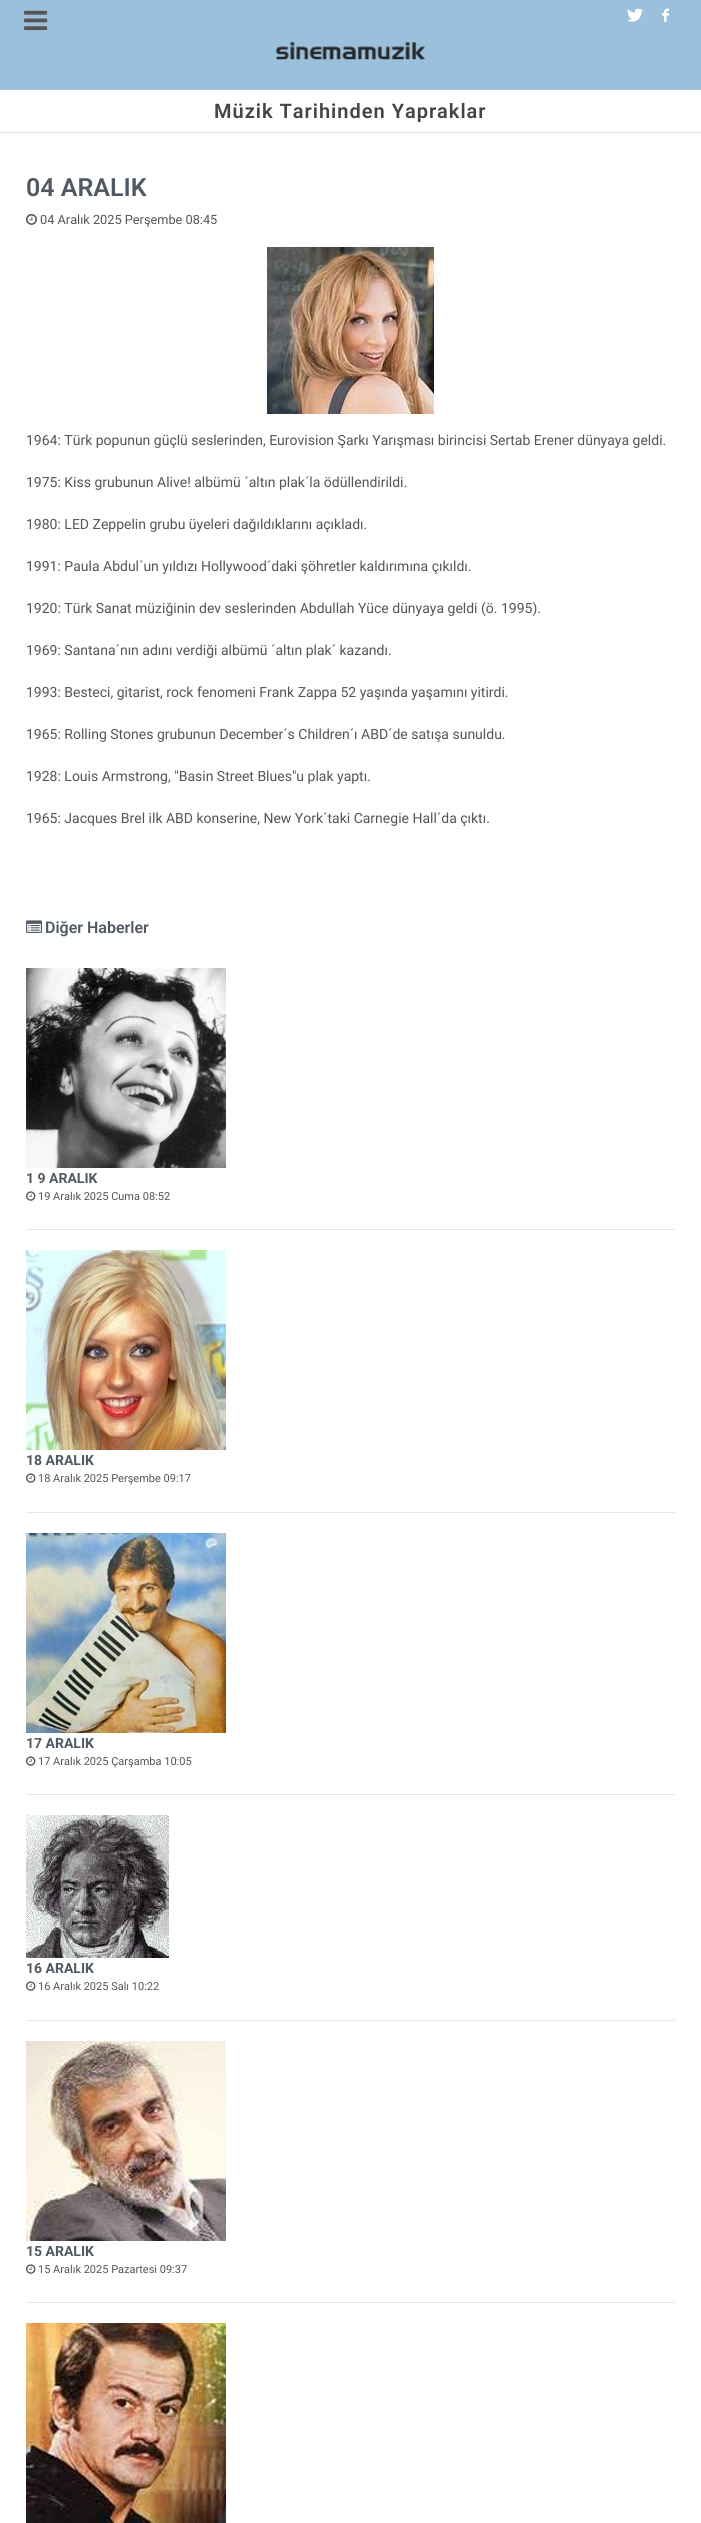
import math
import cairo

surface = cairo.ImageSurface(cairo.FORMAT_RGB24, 701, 2523)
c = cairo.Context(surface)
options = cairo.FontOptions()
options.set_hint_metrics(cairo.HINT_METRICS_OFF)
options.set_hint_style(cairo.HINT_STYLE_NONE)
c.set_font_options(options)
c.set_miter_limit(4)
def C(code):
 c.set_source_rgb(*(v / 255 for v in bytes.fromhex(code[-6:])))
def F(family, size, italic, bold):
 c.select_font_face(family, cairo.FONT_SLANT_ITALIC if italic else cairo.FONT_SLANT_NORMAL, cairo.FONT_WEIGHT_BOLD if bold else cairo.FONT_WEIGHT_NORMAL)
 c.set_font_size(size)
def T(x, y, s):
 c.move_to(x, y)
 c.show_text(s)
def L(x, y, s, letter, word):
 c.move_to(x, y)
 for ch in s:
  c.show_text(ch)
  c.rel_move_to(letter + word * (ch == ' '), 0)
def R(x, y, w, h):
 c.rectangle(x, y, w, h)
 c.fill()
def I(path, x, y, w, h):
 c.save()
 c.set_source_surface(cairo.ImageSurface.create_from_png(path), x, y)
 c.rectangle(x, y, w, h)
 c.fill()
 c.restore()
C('ffffff')
c.paint()
C('9bc0db')
R(0,0,701,90)
I('1.png',627,8,16,14)
I('2.png',662,8,7,14)
I('3.png',24,10,24,21)
I('4.png',275,42,151,18)
C('e4e4e4')
R(0,132,701,1)
F('Roboto SemiBold',20,0,0)
C('444444')
L(214,118,'Müzik Tarihinden Yapraklar',1,0)
F('Roboto SemiBold',25,0,0)
C('505962')
T(26,196,'04 ARALIK')
I('5.png',26,213,11,12)
F('Roboto',12.75,0,0)
C('555555')
T(40,224,'04 Aralık 2025 Perşembe 08:45')
I('6.png',267,247,167,167)
F('Roboto',14,0,0)
T(26,445,'1964: Türk popunun güçlü seslerinden, Eurovision Şarkı Yarışması birincisi Sertab Erener dünyaya geldi.')
T(26,487,'1975: Kiss grubunun Alive! albümü ´altın plak´la ödüllendirildi.')
T(26,529,'1980: LED Zeppelin grubu üyeleri dağıldıklarını açıkladı.')
T(26,571,'1991: Paula Abdul´un yıldızı Hollywood´daki şöhretler kaldırımına çıkıldı.')
T(26,613,'1920: Türk Sanat müziğinin dev seslerinden Abdullah Yüce dünyaya geldi (ö. 1995).')
T(26,655,'1969: Santana´nın adını verdiği albümü ´altın plak´ kazandı.')
T(26,697,'1993: Besteci, gitarist, rock fenomeni Frank Zappa 52 yaşında yaşamını yitirdi.')
T(26,739,'1965: Rolling Stones grubunun December´s Children´ı ABD´de satışa sunuldu.')
T(26,781,'1928: Louis Armstrong, "Basin Street Blues"u plak yaptı.')
T(26,823,'1965: Jacques Brel ilk ABD konserine, New York´taki Carnegie Hall´da çıktı.')
I('7.png',26,920,16,13)
F('Roboto SemiBold',16,0,0)
C('505962')
T(45,933,'Diğer Haberler')
I('8.png',26,968,200,200)
F('Roboto',14,0,1)
T(26,1183,'1 9 ARALIK')
I('9.png',26,1191,10,10)
F('Roboto',11,0,0)
C('555555')
T(38,1200,'19 Aralık 2025 Cuma 08:52')
C('e6e6e6')
R(26,1229,649,1)
I('10.png',26,1250,200,200)
F('Roboto',14,0,1)
C('505962')
T(26,1465,'18 ARALIK')
I('9.png',26,1473,10,10)
F('Roboto',11,0,0)
C('555555')
T(38,1482,'18 Aralık 2025 Perşembe 09:17')
C('e6e6e6')
R(26,1512,649,1)
I('11.png',26,1533,200,200)
F('Roboto',14,0,1)
C('505962')
T(26,1748,'17 ARALIK')
I('9.png',26,1756,10,10)
F('Roboto',11,0,0)
C('555555')
T(38,1765,'17 Aralık 2025 Çarşamba 10:05')
C('e6e6e6')
R(26,1794,649,1)
I('12.png',26,1815,143,143)
F('Roboto',14,0,1)
C('505962')
T(26,1973,'16 ARALIK')
I('9.png',26,1981,10,10)
F('Roboto',11,0,0)
C('555555')
T(38,1990,'16 Aralık 2025 Salı 10:22')
C('e6e6e6')
R(26,2020,649,1)
I('13.png',26,2041,200,200)
F('Roboto',14,0,1)
C('505962')
T(26,2256,'15 ARALIK')
I('9.png',26,2264,10,10)
F('Roboto',11,0,0)
C('555555')
T(38,2273,'15 Aralık 2025 Pazartesi 09:37')
C('e6e6e6')
R(26,2302,649,1)
I('14.png',26,2323,200,200)
surface.write_to_png('o.png')
